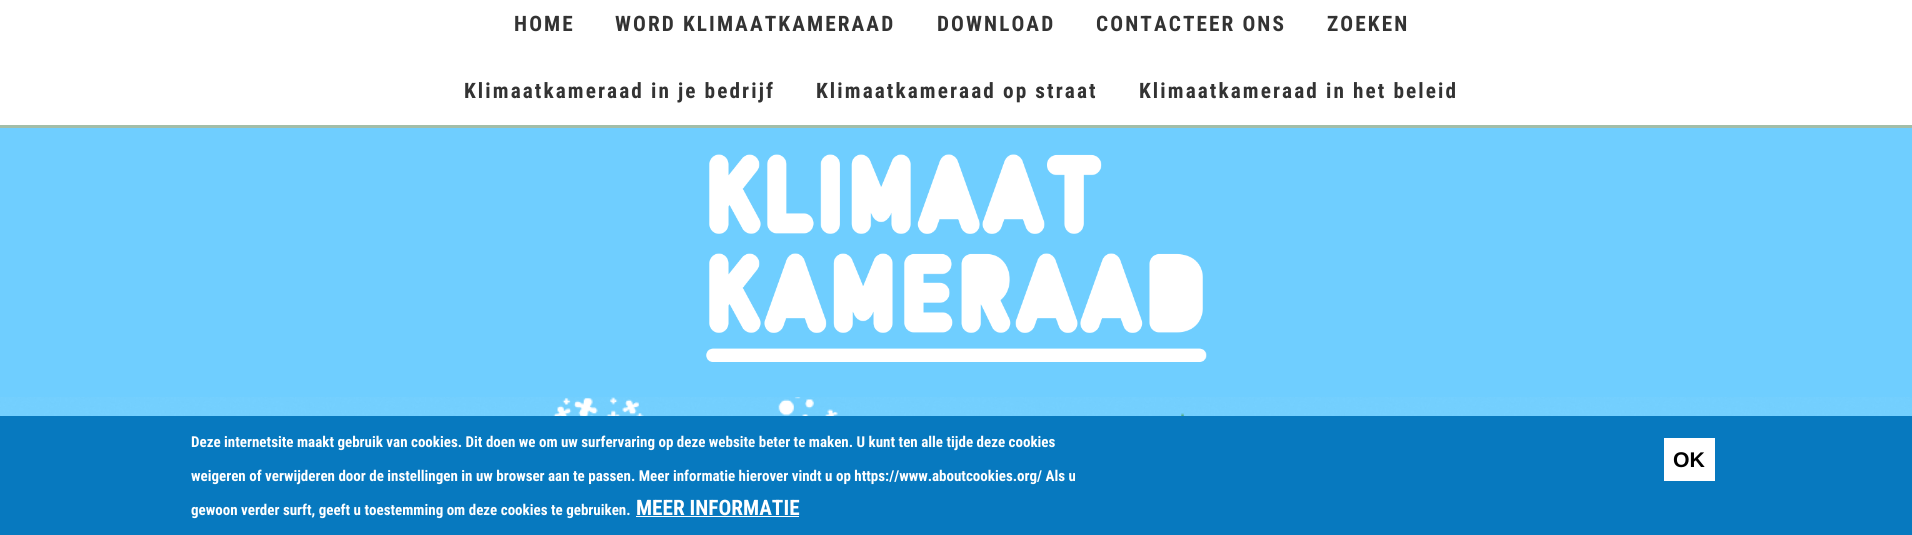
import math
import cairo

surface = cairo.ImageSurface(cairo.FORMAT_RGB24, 1912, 535)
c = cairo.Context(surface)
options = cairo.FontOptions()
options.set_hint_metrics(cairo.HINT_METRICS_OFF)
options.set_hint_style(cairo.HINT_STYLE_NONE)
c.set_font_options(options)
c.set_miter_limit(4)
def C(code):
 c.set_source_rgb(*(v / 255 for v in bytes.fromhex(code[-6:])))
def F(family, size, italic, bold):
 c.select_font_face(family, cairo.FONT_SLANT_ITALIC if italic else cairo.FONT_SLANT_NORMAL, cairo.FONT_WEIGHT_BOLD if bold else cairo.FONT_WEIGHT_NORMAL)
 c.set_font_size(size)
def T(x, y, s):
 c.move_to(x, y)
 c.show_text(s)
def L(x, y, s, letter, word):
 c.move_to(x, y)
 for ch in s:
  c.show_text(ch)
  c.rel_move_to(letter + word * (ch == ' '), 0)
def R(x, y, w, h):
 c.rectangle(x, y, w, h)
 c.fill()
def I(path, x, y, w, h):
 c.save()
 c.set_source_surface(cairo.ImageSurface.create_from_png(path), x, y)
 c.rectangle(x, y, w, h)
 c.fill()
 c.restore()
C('ffffff')
c.paint()
C('a2bda8')
R(0,125,1912,3)
F('Roboto Condensed',21.25,0,1)
C('333333')
L(514,31,'HOME',2.1,0)
L(615,31,'WORD KLIMAATKAMERAAD',2.1,0)
L(937,31,'DOWNLOAD',2.1,0)
L(1096,31,'CONTACTEER ONS',2.1,0)
L(1327,31,'ZOEKEN',2.1,0)
L(464,98,'Klimaatkameraad in je bedrijf',2.1,0)
L(816,98,'Klimaatkameraad op straat',2.1,0)
L(1139,98,'Klimaatkameraad in het beleid',2.1,0)
C('6fceff')
R(0,128,1912,269)
I('1.png',706,154,501,208)
I('2.png',0,397,1912,19)
I('3.png',553,397,631,19)
C('0779bf')
R(0,416,1912,119)
F('Roboto Condensed',15,0,1)
C('ffffff')
T(191,447,'Deze internetsite maakt gebruik van cookies. Dit doen we om uw surfervaring op deze website beter te maken. U kunt ten alle tijde deze cookies')
T(191,481,'weigeren of verwijderen door de instellingen in uw browser aan te passen. Meer informatie hierover vindt u op https://www.aboutcookies.org/ Als u')
T(191,515,'gewoon verder surft, geeft u toestemming om deze cookies te gebruiken.')
F('Roboto Condensed',21.25,0,1)
T(636,515,'MEER INFORMATIE')
R(636,516,163,1)
R(1664,438,51,43)
F('Liberation Sans',21.25,0,1)
C('000000')
T(1673,467,'OK')
surface.write_to_png('o.png')
